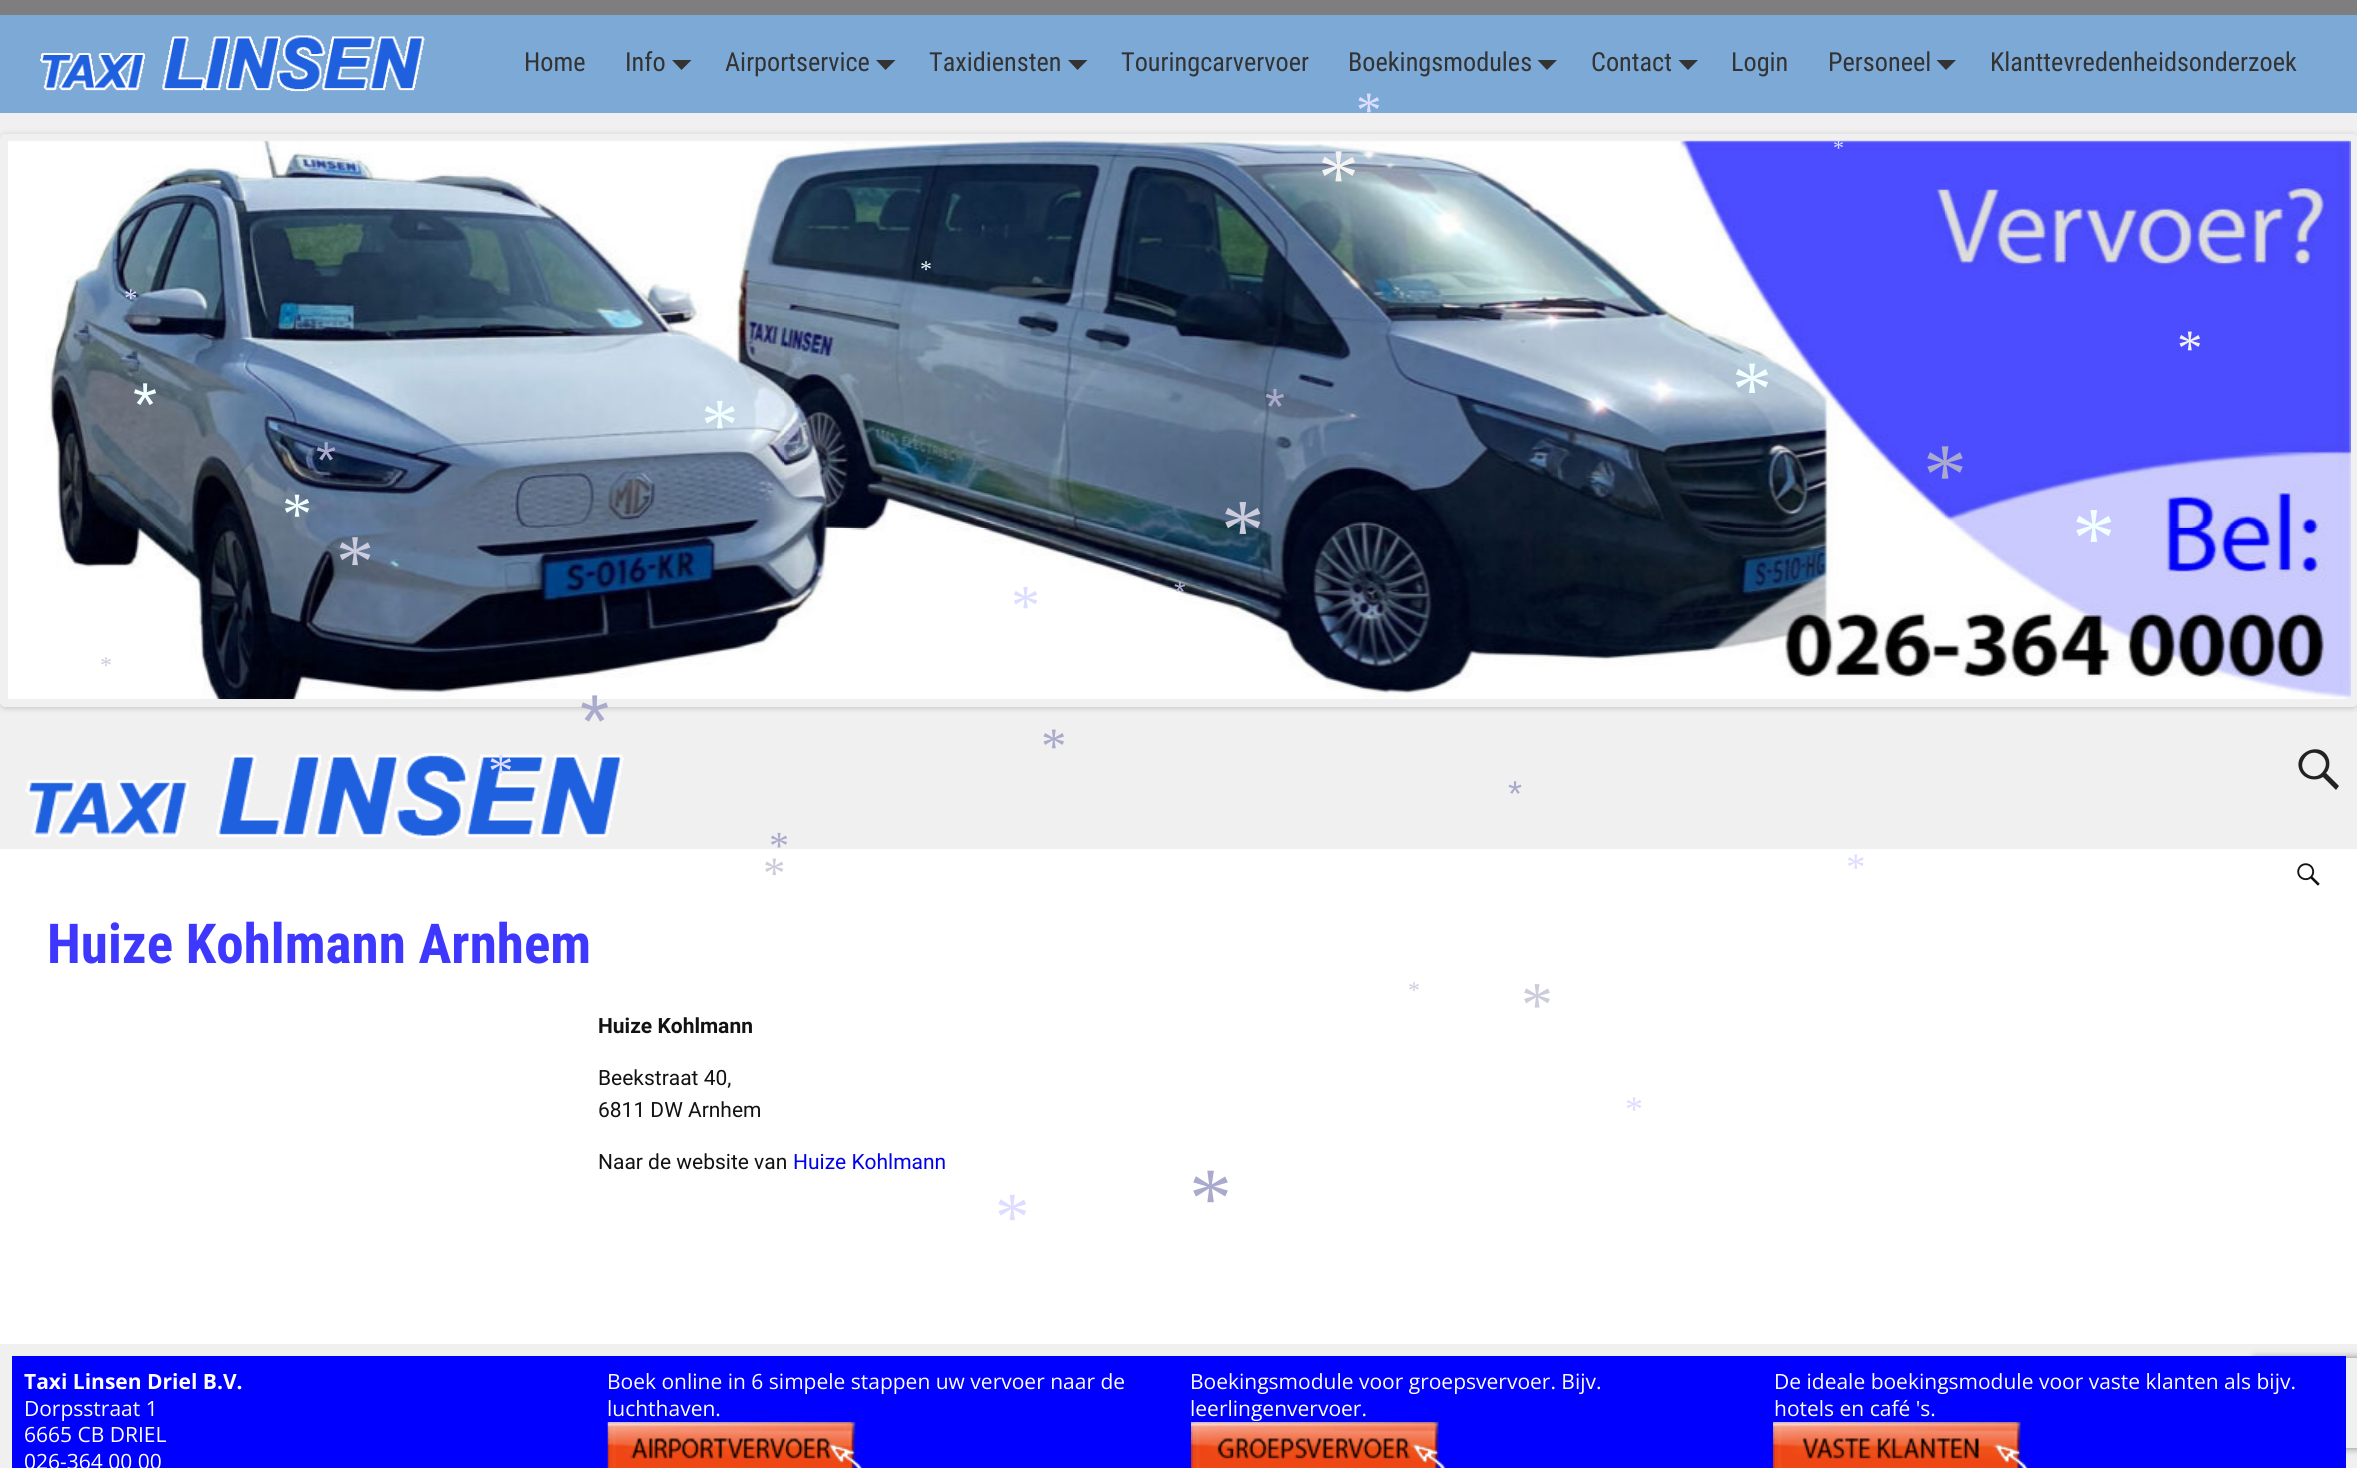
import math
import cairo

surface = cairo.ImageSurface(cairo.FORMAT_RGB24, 2357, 1468)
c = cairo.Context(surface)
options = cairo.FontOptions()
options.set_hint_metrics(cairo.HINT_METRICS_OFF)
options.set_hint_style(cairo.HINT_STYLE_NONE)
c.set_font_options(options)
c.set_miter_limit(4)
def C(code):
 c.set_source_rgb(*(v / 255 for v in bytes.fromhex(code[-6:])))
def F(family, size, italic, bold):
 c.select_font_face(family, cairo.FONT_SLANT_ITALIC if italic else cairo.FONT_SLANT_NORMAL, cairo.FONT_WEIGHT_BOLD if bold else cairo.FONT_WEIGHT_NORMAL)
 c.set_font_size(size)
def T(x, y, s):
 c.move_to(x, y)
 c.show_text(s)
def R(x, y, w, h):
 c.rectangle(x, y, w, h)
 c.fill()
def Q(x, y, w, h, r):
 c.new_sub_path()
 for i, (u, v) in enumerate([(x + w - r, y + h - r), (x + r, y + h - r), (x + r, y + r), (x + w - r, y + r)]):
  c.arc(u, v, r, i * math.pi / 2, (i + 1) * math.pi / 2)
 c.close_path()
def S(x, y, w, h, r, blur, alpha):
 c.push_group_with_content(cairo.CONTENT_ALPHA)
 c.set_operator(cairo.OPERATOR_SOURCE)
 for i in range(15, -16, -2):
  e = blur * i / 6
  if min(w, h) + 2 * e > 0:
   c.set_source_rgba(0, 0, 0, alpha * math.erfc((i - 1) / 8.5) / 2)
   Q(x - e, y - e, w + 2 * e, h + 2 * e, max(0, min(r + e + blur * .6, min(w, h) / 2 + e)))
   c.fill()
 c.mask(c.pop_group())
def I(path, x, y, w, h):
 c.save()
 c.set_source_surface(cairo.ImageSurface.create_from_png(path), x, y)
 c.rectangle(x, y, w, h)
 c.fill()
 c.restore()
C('fcfcfc')
c.paint()
I('1.png',0,0,2357,15)
C('ffffff')
R(0,849,2357,495)
C('f0f0f0')
R(0,113,2357,736)
C('7ca9d5')
R(0,15,2357,98)
I('2.png',40,35,385,57)
F('Roboto Condensed',26.25,0,0)
C('333333')
T(524,71,'Home')
T(625,71,'Info')
c.new_path()
c.move_to(672,60)
c.line_to(691.5,60)
c.line_to(681.5,70)
c.close_path()
c.fill()
T(725,71,'Airportservice')
c.new_path()
c.move_to(876,60)
c.line_to(895.5,60)
c.line_to(885.5,70)
c.close_path()
c.fill()
T(929,71,'Taxidiensten')
c.new_path()
c.move_to(1068,60)
c.line_to(1087.5,60)
c.line_to(1077.5,70)
c.close_path()
c.fill()
T(1121,71,'Touringcarvervoer')
T(1348,71,'Boekingsmodules')
c.new_path()
c.move_to(1537.5,60)
c.line_to(1557,60)
c.line_to(1547,70)
c.close_path()
c.fill()
T(1591,71,'Contact')
c.new_path()
c.move_to(1678.5,60)
c.line_to(1698,60)
c.line_to(1688,70)
c.close_path()
c.fill()
T(1731,71,'Login')
T(1828,71,'Personeel')
c.new_path()
c.move_to(1936.5,60)
c.line_to(1956,60)
c.line_to(1946,70)
c.close_path()
c.fill()
T(1990,71,'Klanttevredenheidsonderzoek')
c.save()
c.set_fill_rule(cairo.FILL_RULE_EVEN_ODD)
c.new_path()
c.move_to(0,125)
c.line_to(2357,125)
c.line_to(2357,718)
c.line_to(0,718)
c.close_path()
c.move_to(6,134)
c.line_to(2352,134)
c.curve_to(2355.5,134,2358,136.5,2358,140)
c.line_to(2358,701)
c.curve_to(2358,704.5,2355.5,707,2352,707)
c.line_to(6,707)
c.curve_to(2.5,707,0,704.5,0,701)
c.line_to(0,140)
c.curve_to(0,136.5,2.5,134,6,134)
c.close_path()
c.clip()
C('000000')
S(0,135,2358,573,6,3,.2)
c.restore()
I('3.png',8,140,2343,559)
I('4.png',25,753,599,86)
C('222222')
c.new_path()
c.move_to(2339,786)
c.line_to(2336,790)
c.line_to(2323,777)
c.curve_to(2315,782,2304,779,2300,771)
c.curve_to(2291,752,2323,739,2329,760)
c.curve_to(2330,765,2329,770,2326,773)
c.close_path()
c.move_to(2304,759)
c.curve_to(2296,772,2316,784,2324,770)
c.curve_to(2332,757,2312,745,2304,759)
c.close_path()
c.fill()
I('5.png',2297,863,23,23)
F('Roboto Condensed',55.1,0,1)
C('3e38ff')
T(47,963,'Huize Kohlmann Arnhem')
F('Roboto',21,0,1)
C('121212')
T(598,1033,'Huize Kohlmann')
F('Roboto',21,0,0)
T(598,1085,'Beekstraat 40,')
T(598,1117,'6811 DW Arnhem')
T(598,1169,'Naar de website van')
C('0000ee')
T(793,1169,'Huize Kohlmann')
C('f0f0f0')
R(0,1344,2357,124)
c.save()
c.set_fill_rule(cairo.FILL_RULE_EVEN_ODD)
c.new_path()
c.move_to(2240,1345)
c.line_to(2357,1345)
c.line_to(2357,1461)
c.line_to(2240,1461)
c.close_path()
c.move_to(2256,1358)
c.line_to(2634,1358)
c.curve_to(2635.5,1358,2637,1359.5,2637,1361)
c.line_to(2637,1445)
c.curve_to(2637,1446.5,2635.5,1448,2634,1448)
c.line_to(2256,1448)
c.curve_to(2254.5,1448,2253,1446.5,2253,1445)
c.line_to(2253,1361)
c.curve_to(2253,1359.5,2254.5,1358,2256,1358)
c.close_path()
c.clip()
C('808080')
S(2253,1358,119,90,3,4,1)
c.restore()
C('0000fe')
R(12,1356,2334,112)
F('Open Sans',21,0,1)
C('ffffff')
T(24,1389,'Taxi Linsen Driel B.V.')
F('Open Sans',21,0,0)
T(24,1416,'Dorpsstraat 1')
T(24,1442,'6665 CB DRIEL')
T(24,1469,'026-364 00 00')
T(607,1389,'Boek online in 6 simpele stappen uw vervoer naar de')
T(607,1416,'luchthaven.')
I('6.png',607,1422,256,46)
T(1190,1389,'Boekingsmodule voor groepsvervoer. Bijv.')
T(1190,1416,'leerlingenvervoer.')
I('7.png',1191,1422,255,46)
T(1774,1389,'De ideale boekingsmodule voor vaste klanten als bijv.')
T(1774,1416,'hotels en café \'s.')
I('8.png',1773,1422,255,46)
F('Liberation Serif',51,0,0)
C('ddddff')
T(1356,127,'*')
F('Liberation Serif',22,0,0)
T(1833,155,'*')
F('Liberation Serif',82,0,0)
C('f3f3f3')
T(1318,205,'*')
F('Liberation Serif',24,0,0)
C('f0ffff')
T(920,277,'*')
F('Liberation Serif',27,0,0)
C('ddddff')
T(124,307,'*')
F('Liberation Serif',51,0,0)
C('f3f3f3')
T(2177,365,'*')
F('Liberation Sans',62,0,0)
C('f0ffff')
T(133,426,'*')
F('Liberation Sans',51,0,0)
C('aaaacc')
T(1265,424,'*')
F('Liberation Serif',80,0,0)
C('f0ffff')
T(1732,416,'*')
F('Liberation Serif',75,0,0)
T(701,450,'*')
F('Liberation Sans',52,0,0)
C('aaaacc')
T(316,478,'*')
F('Liberation Serif',88,0,0)
T(1923,504,'*')
F('Liberation Serif',60,0,0)
C('f0ffff')
T(282,534,'*')
F('Liberation Serif',87,0,0)
C('ccccdd')
T(1221,559,'*')
C('f0ffff')
T(2072,567,'*')
F('Liberation Serif',76,0,0)
C('ccccdd')
T(336,587,'*')
F('Liberation Serif',58,0,0)
C('ddddff')
T(1011,625,'*')
F('Liberation Sans',30,0,0)
C('aaaacc')
T(1174,602,'*')
F('Liberation Serif',24,0,0)
C('ccccdd')
T(100,673,'*')
F('Liberation Sans',75,0,0)
C('aaaacc')
T(580,747,'*')
F('Liberation Serif',51,0,0)
T(1041,763,'*')
C('ddddff')
T(488,788,'*')
F('Liberation Sans',36,0,0)
C('aaaacc')
T(1508,806,'*')
F('Liberation Serif',40,0,0)
T(769,859,'*')
F('Liberation Serif',45,0,0)
C('ccccdd')
T(763,888,'*')
F('Liberation Serif',39,0,0)
C('ddddff')
T(1846,880,'*')
F('Liberation Serif',24,0,0)
C('ccccdd')
T(1408,998,'*')
F('Liberation Serif',64,0,0)
T(1521,1026,'*')
F('Liberation Serif',36,0,0)
C('ddddff')
T(1625,1121,'*')
F('Liberation Serif',86,0,0)
C('aaaacc')
T(1189,1227,'*')
F('Liberation Serif',69,0,0)
C('ddddff')
T(995,1240,'*')
surface.write_to_png('o.png')
